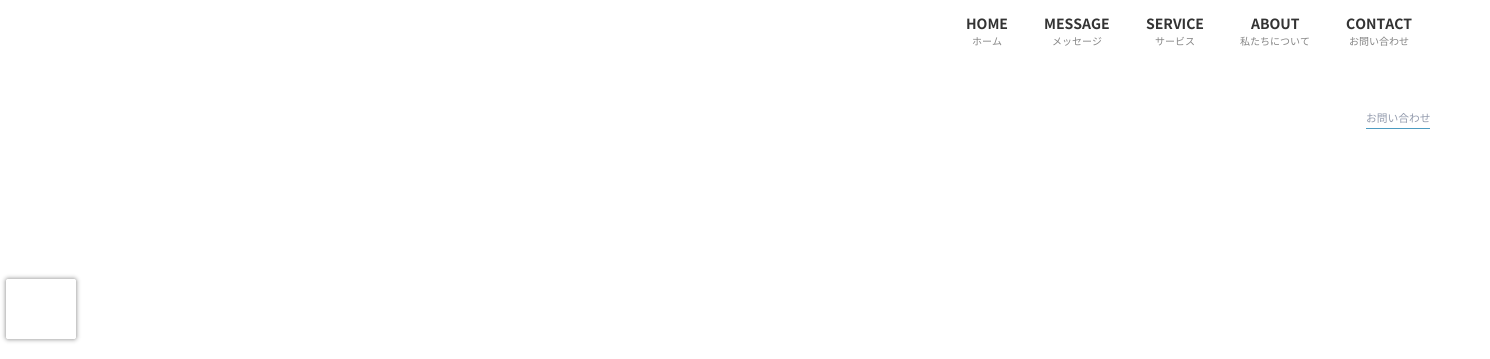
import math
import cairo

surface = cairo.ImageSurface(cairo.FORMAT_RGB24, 1490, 359)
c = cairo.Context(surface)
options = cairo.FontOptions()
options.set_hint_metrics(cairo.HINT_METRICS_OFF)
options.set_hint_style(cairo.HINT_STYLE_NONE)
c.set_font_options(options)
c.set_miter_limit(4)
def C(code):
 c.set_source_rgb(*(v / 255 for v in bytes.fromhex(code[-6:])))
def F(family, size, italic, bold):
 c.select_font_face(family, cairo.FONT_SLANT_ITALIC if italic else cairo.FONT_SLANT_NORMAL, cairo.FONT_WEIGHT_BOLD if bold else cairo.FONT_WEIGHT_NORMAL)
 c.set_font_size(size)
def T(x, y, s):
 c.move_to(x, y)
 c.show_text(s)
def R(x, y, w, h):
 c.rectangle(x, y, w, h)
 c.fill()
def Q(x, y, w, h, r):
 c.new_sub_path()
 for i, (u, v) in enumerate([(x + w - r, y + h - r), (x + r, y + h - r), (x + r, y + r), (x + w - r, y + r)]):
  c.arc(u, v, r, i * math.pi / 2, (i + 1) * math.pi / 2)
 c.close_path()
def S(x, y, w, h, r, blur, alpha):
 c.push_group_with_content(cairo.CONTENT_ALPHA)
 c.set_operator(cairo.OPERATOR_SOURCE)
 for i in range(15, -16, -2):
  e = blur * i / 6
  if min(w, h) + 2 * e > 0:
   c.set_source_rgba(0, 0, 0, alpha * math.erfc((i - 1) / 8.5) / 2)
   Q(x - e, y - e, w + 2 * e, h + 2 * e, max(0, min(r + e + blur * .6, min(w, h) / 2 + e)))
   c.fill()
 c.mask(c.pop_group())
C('ffffff')
c.paint()
F('Noto Sans JP',14,0,1)
C('333333')
T(966,29,'HOME')
F('Noto Sans JP',10,0,0)
C('858585')
T(972,45,'ホーム')
F('Noto Sans JP',14,0,1)
C('333333')
T(1044,29,'MESSAGE')
F('Noto Sans JP',10,0,0)
C('858585')
T(1052,45,'メッセージ')
F('Noto Sans JP',14,0,1)
C('333333')
T(1146,29,'SERVICE')
F('Noto Sans JP',10,0,0)
C('858585')
T(1155,45,'サービス')
F('Noto Sans JP',14,0,1)
C('333333')
T(1251,29,'ABOUT')
F('Noto Sans JP',10,0,0)
C('858585')
T(1240,45,'私たちについて')
F('Noto Sans JP',14,0,1)
C('333333')
T(1346,29,'CONTACT')
F('Noto Sans JP',10,0,0)
C('858585')
T(1349,45,'お問い合わせ')
C('4d9bc1')
R(1366,128,64,1)
F('Noto Sans JP',10.75,0,0)
C('939bad')
T(1366,122,'お問い合わせ')
c.save()
c.set_fill_rule(cairo.FILL_RULE_EVEN_ODD)
c.new_path()
c.move_to(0,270)
c.line_to(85,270)
c.line_to(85,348)
c.line_to(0,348)
c.close_path()
c.move_to(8,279)
c.line_to(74,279)
c.curve_to(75,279,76,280,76,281)
c.line_to(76,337)
c.curve_to(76,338,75,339,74,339)
c.line_to(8,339)
c.curve_to(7,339,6,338,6,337)
c.line_to(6,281)
c.curve_to(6,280,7,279,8,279)
c.close_path()
c.clip()
C('808080')
S(6,279,70,60,2,2.5,1)
c.restore()
surface.write_to_png('o.png')
